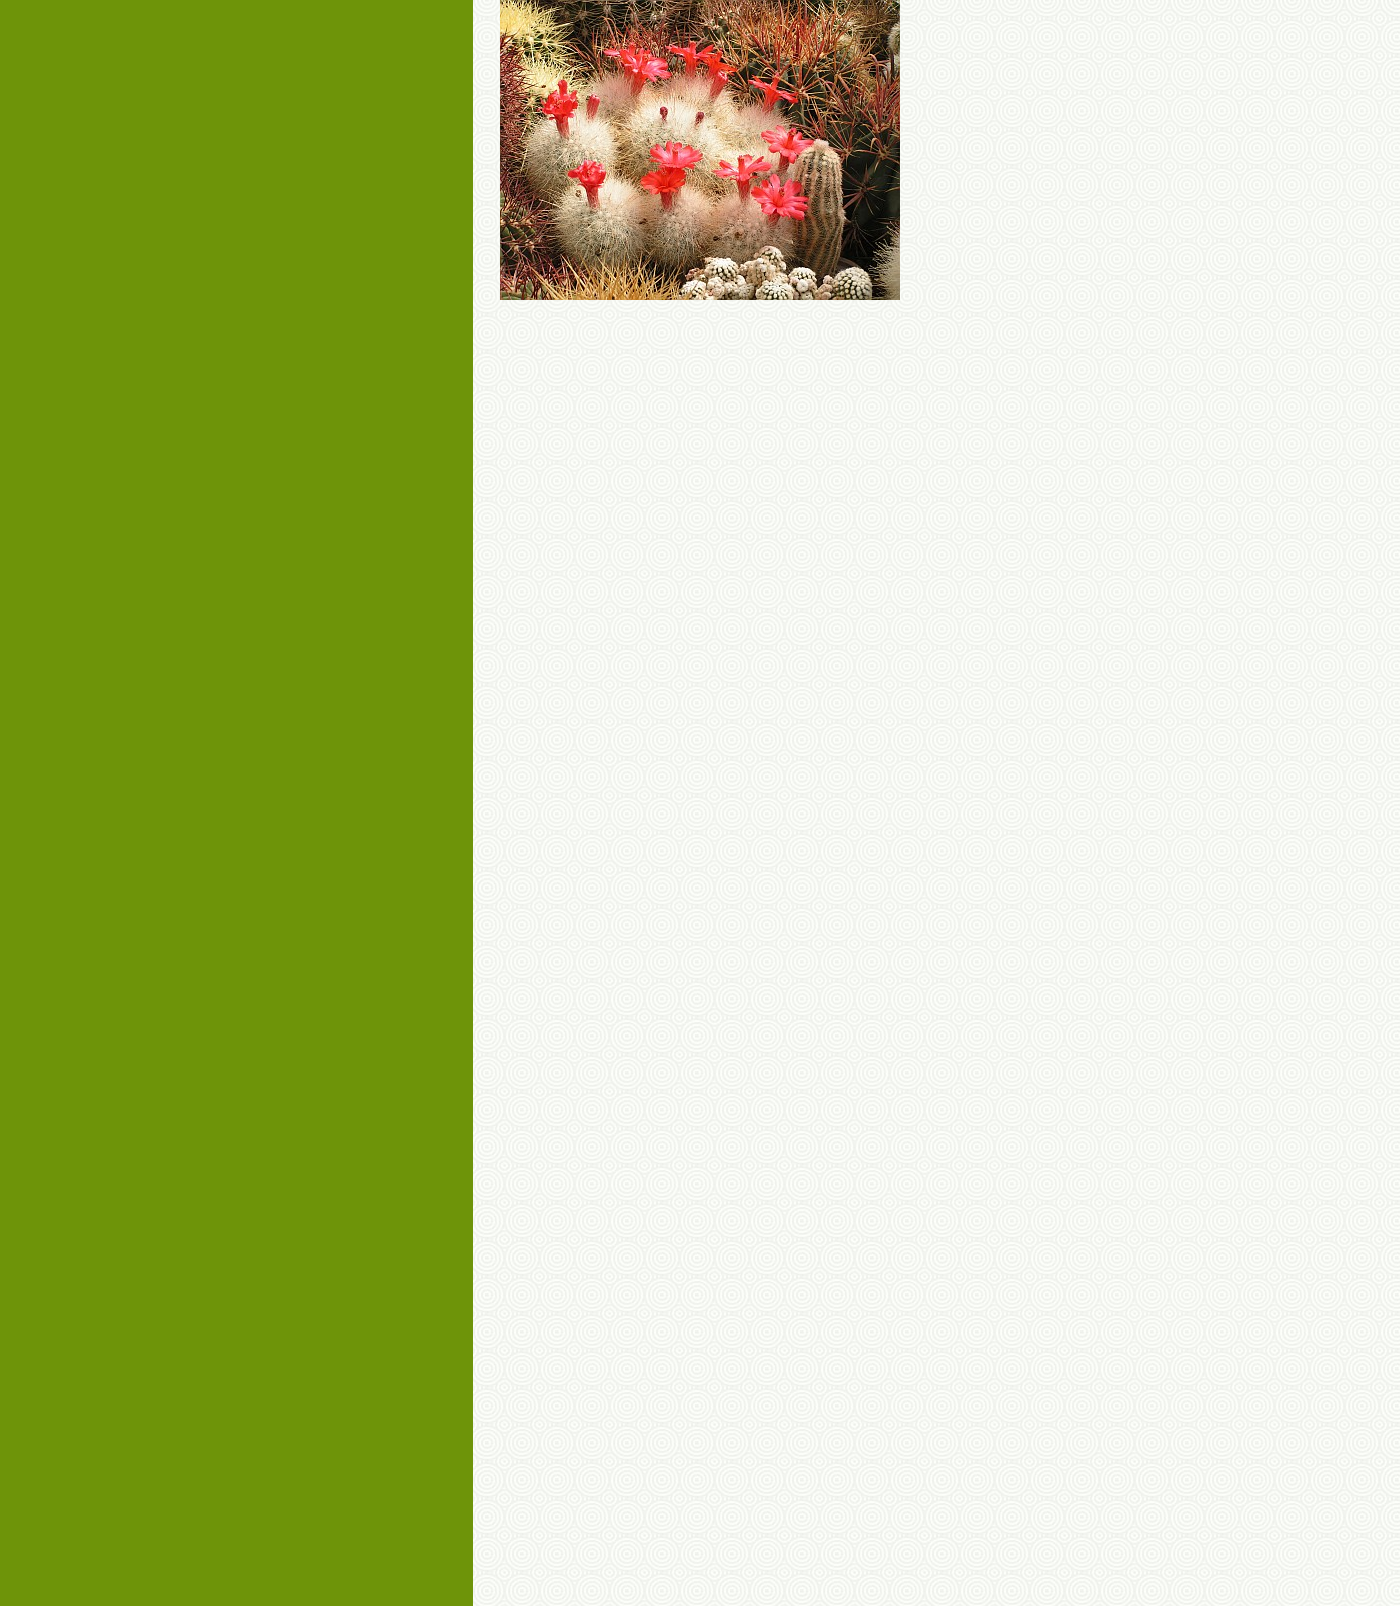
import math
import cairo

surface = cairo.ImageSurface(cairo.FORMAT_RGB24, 1400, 1606)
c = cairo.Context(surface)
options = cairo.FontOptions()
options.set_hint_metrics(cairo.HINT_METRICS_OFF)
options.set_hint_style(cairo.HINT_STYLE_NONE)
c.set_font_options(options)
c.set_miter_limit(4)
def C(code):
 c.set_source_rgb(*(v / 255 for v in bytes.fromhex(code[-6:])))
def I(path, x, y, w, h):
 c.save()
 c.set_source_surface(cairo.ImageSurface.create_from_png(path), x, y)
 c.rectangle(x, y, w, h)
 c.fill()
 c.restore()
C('6e9409')
c.paint()
I('1.png',473,0,927,1606)
I('2.png',500,0,400,300)
surface.write_to_png('o.png')
